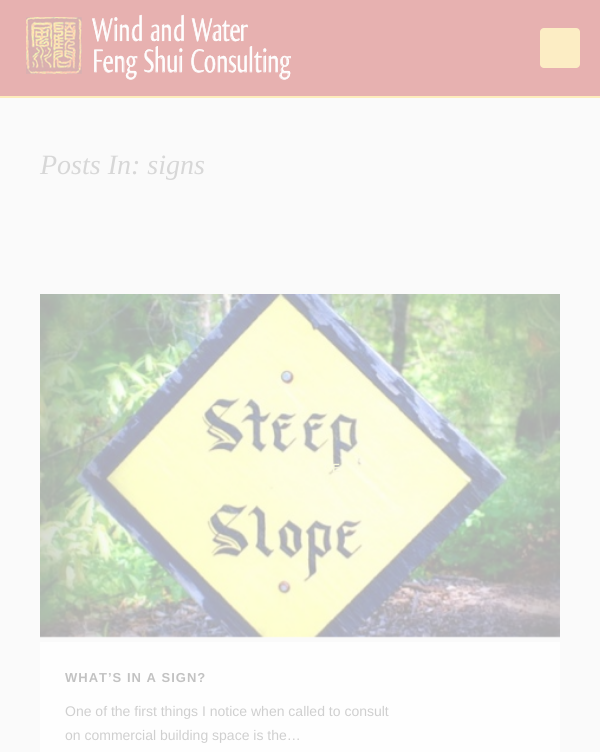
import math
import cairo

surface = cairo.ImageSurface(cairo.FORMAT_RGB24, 600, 752)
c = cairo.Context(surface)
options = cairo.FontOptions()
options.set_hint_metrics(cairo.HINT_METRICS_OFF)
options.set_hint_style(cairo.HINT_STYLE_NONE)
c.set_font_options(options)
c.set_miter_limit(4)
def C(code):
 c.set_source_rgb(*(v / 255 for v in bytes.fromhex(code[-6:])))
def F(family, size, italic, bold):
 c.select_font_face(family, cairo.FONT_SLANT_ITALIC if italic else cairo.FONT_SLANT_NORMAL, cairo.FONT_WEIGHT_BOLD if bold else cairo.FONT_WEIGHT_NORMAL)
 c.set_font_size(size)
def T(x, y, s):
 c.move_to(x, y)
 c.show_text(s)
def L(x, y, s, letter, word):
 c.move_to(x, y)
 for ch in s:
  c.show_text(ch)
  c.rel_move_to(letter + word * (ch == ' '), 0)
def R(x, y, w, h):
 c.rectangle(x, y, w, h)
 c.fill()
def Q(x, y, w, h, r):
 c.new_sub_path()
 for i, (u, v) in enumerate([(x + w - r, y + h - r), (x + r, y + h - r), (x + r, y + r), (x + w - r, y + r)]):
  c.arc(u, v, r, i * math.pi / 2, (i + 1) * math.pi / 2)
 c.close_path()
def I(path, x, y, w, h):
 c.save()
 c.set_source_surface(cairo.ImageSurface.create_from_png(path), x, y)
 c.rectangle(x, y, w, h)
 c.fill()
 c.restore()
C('fafafa')
c.paint()
C('feecbb')
R(0,96,600,2)
C('e7b1b0')
R(0,0,600,96)
I('1.png',26,14,265,66)
C('fcedc4')
Q(540,28,40,40,4)
c.fill()
F('Liberation Serif',28,1,0)
C('d7d7d7')
T(40,174,'Posts In: signs')
I('2.png',40,294,520,344)
F('Liberation Sans',12,0,1)
C('f9f9de')
L(332,472,'E',1,0)
C('fefefe')
R(40,642,520,110)
F('Liberation Sans',13,0,1)
C('c2c2c2')
L(65,682,'WHAT’S IN A SIGN?',1,0)
F('Liberation Sans',14,0,0)
C('cfcfcf')
T(65,716,'One of the first things I notice when called to consult')
T(65,740,'on commercial building space is the…')
surface.write_to_png('o.png')
